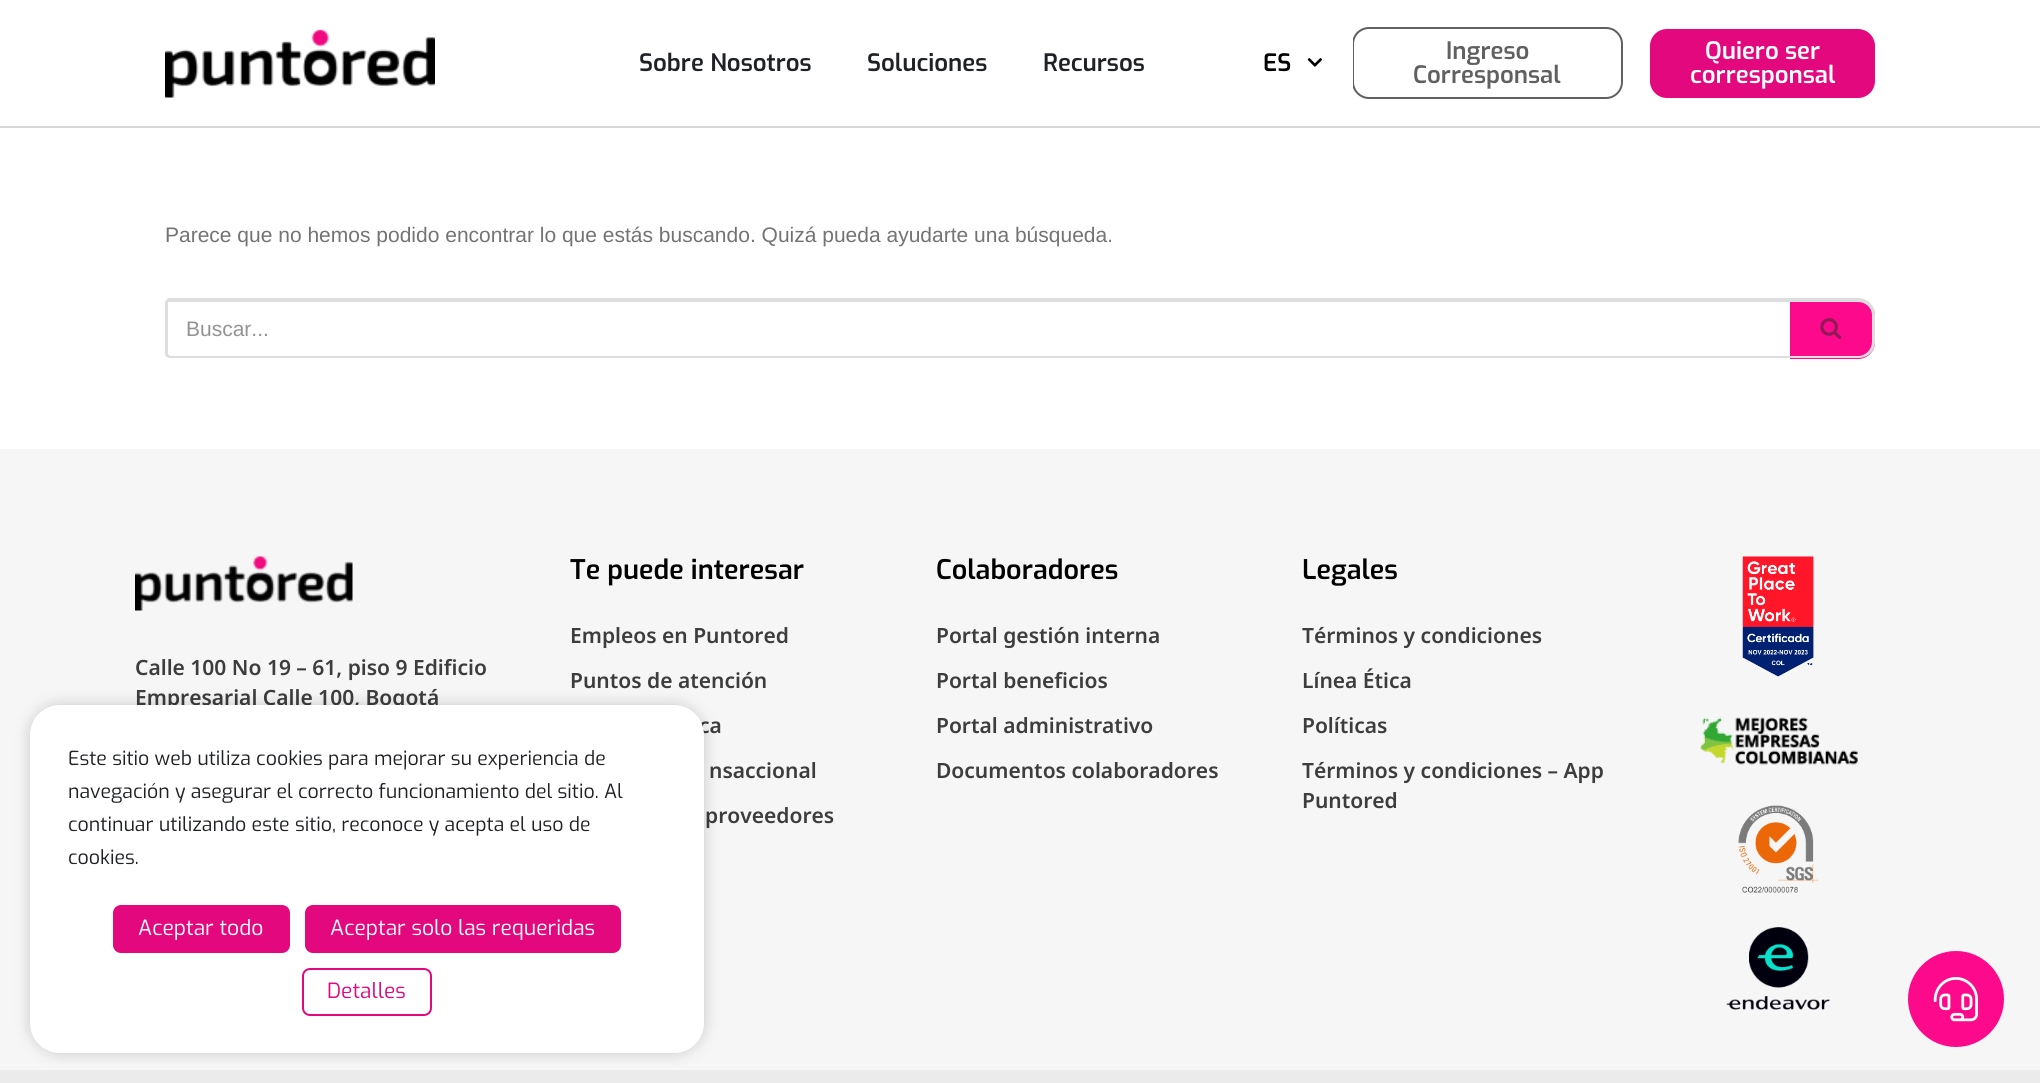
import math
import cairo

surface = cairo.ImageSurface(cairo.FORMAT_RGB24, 2040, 1083)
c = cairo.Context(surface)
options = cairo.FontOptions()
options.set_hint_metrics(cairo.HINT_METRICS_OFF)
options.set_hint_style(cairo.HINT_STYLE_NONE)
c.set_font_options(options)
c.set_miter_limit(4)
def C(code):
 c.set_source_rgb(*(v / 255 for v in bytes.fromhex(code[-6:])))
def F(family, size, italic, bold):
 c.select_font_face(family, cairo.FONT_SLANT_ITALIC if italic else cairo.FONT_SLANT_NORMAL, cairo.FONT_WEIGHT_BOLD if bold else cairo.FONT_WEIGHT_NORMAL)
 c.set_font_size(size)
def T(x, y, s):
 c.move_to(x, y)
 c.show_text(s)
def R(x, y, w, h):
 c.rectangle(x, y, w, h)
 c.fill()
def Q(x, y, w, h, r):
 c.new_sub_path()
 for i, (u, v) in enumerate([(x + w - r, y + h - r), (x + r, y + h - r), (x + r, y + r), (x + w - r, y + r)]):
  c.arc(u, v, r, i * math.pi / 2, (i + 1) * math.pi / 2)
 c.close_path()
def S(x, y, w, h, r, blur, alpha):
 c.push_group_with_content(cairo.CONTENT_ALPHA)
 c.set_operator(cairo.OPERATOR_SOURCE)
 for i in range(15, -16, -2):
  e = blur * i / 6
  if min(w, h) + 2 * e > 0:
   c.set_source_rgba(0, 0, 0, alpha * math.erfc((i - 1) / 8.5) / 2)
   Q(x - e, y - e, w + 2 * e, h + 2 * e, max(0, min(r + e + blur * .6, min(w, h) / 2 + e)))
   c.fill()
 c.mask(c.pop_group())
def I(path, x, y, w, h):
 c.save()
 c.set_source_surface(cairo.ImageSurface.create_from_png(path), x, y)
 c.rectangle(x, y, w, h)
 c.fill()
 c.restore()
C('ffffff')
c.paint()
C('d6d6d6')
R(0,126,2040,2)
I('1.png',165,29,270,69)
F('Exo SemiBold',24,0,0)
C('1f2124')
T(639,71,'Sobre Nosotros')
T(867,71,'Soluciones')
T(1043,71,'Recursos')
Q(1353,28,269,70,16)
C('606060')
c.stroke()
C('ffffff')
R(1352,38,1,50)
C('000000')
T(1263,71,'ES')
I('2.png',1307,58,15,9)
C('606060')
T(1446,59,'Ingreso')
T(1413,83,'Corresponsal')
C('e3087e')
Q(1650,29,225,69,17)
c.fill()
C('ffffff')
T(1705,59,'Quiero ser')
T(1690,83,'corresponsal')
F('Liberation Sans',21,0,0)
C('737373')
T(165,242,'Parece que no hemos podido encontrar lo que estás buscando. Quizá pueda ayudarte una búsqueda.')
C('dddddd')
c.set_fill_rule(cairo.FILL_RULE_EVEN_ODD)
c.new_path()
c.move_to(170,298)
c.line_to(1790,298)
c.line_to(1790,358)
c.line_to(170,358)
c.curve_to(167,358,165,356,165,354)
c.line_to(165,303)
c.curve_to(165,301,167,298,170,298)
c.close_path()
c.move_to(170,302)
c.line_to(1790,302)
c.line_to(1790,356)
c.line_to(170,356)
c.curve_to(169,355,168,355,168,354)
c.line_to(168,302)
c.close_path()
c.fill()
C('939393')
T(186,336,'Buscar...')
C('fc0a8b')
c.new_path()
c.move_to(1790,299)
c.line_to(1858,299)
c.curve_to(1867.5,299,1875,306.5,1875,316)
c.line_to(1875,342)
c.curve_to(1875,351.5,1867.5,359,1858,359)
c.line_to(1790,359)
c.close_path()
c.fill()
C('dddddd')
c.new_path()
c.move_to(1790,298)
c.line_to(1858,298)
c.curve_to(1868,298,1875,306,1875,315)
c.line_to(1875,342)
c.curve_to(1875,351,1868,358,1858,358)
c.line_to(1790,358)
c.close_path()
c.move_to(1790,302)
c.line_to(1858,302)
c.curve_to(1866,302,1872,308,1872,315)
c.line_to(1872,342)
c.curve_to(1872,349,1866,356,1858,356)
c.line_to(1790,356)
c.close_path()
c.fill()
I('3.png',1820,318,22,21)
C('f6f6f6')
R(0,449,2040,621)
I('4.png',135,556,218,55)
F('Noto Sans SemiBold',21,0,0)
C('3d3d3d')
T(135,675,'Calle 100 No 19 – 61, piso 9 Edificio')
T(135,705,'Empresarial Calle 100, Bogotá')
F('Exo SemiBold',27,0,0)
C('000000')
T(570,579,'Te puede interesar')
F('Noto Sans SemiBold',21,0,0)
C('3d3d3d')
T(570,643,'Empleos en Puntored')
T(570,688,'Puntos de atención')
T(699,733,'ca')
T(709,778,'nsaccional')
T(705,823,'proveedores')
F('Exo SemiBold',27,0,0)
C('000000')
T(936,579,'Colaboradores')
F('Noto Sans SemiBold',21,0,0)
C('3d3d3d')
T(936,643,'Portal gestión interna')
T(936,688,'Portal beneficios')
T(936,733,'Portal administrativo')
T(936,778,'Documentos colaboradores')
F('Exo SemiBold',27,0,0)
C('000000')
T(1302,579,'Legales')
F('Noto Sans SemiBold',21,0,0)
C('3d3d3d')
T(1302,643,'Términos y condiciones')
T(1302,688,'Línea Ética')
T(1302,733,'Políticas')
T(1302,778,'Términos y condiciones – App')
T(1302,808,'Puntored')
I('5.png',1742,556,72,121)
I('6.png',1700,717,158,48)
I('7.png',1738,805,80,88)
I('8.png',1726,927,104,83)
C('ebebeb')
R(0,1070,2040,13)
C('000000')
S(30,705,674,348,30,7.5,.2)
C('ffffff')
Q(30,705,674,348,30)
c.fill()
F('Exo',19.5,0,0)
C('1f2124')
T(68,765,'Este sitio web utiliza cookies para mejorar su experiencia de')
T(68,798,'navegación y asegurar el correcto funcionamiento del sitio. Al')
T(68,831,'continuar utilizando este sitio, reconoce y acepta el uso de')
T(68,864,'cookies.')
C('e3087e')
Q(114,906,175,46,7)
c.fill_preserve()
c.stroke()
F('Exo',21,0,0)
C('ffffff')
T(138,935,'Aceptar todo')
C('e3087e')
Q(306,906,314,46,7)
c.fill_preserve()
c.stroke()
C('ffffff')
T(330,935,'Aceptar solo las requeridas')
Q(303,969,128,46,7)
C('e3087e')
c.stroke()
T(327,998,'Detalles')
C('fc0a8b')
c.new_path()
c.arc(1956,999,48,0,2 * math.pi)
c.fill()
I('9.png',1933,977,45,45)
surface.write_to_png('o.png')
